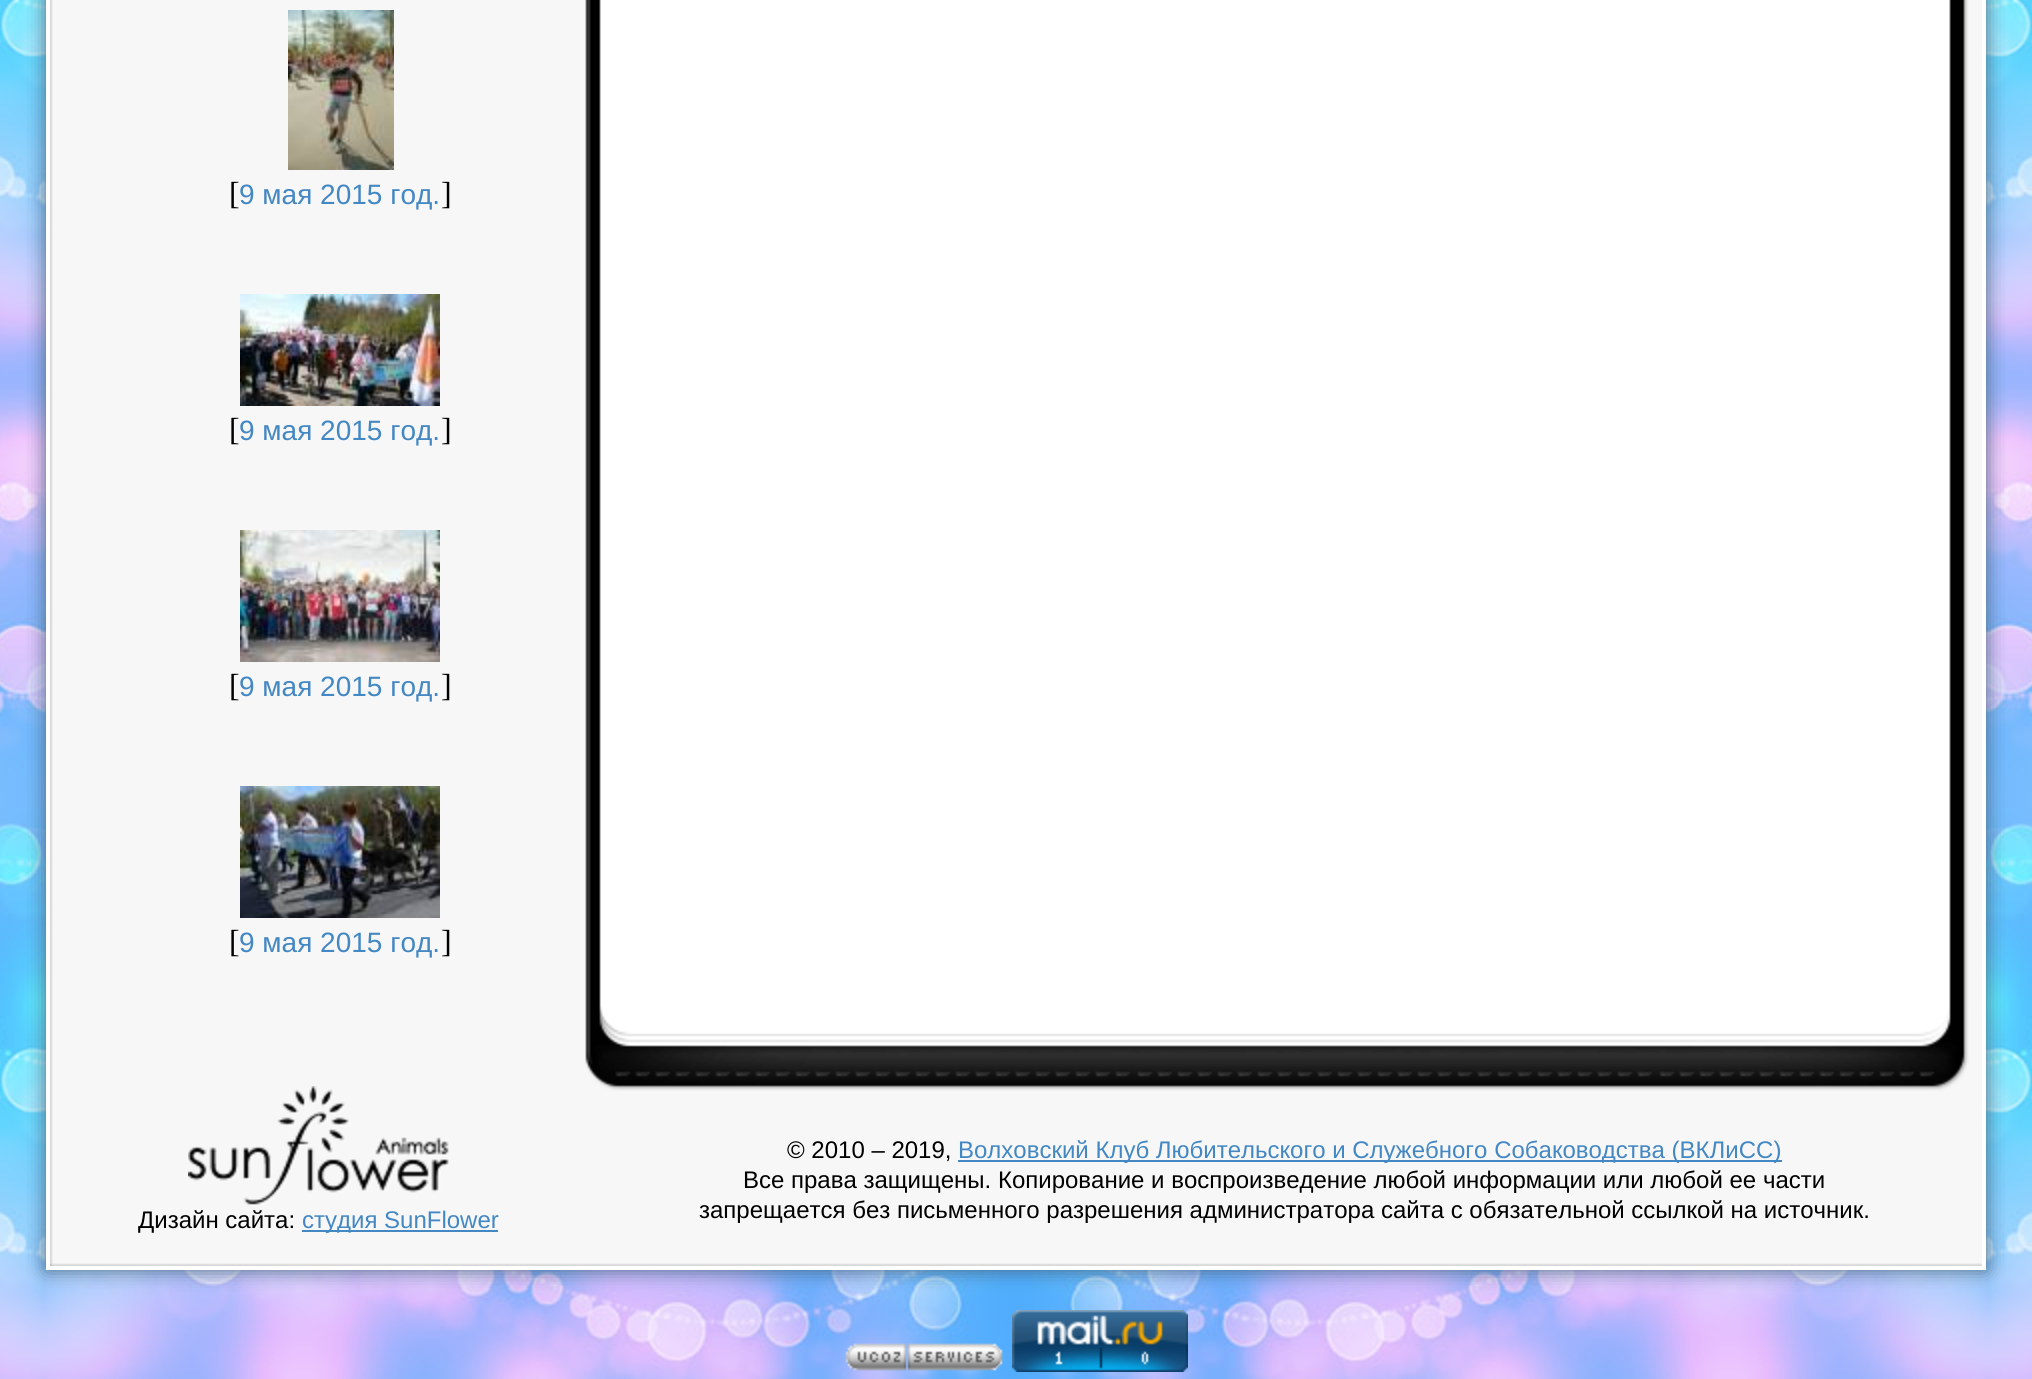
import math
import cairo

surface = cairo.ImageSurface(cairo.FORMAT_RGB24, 2032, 1379)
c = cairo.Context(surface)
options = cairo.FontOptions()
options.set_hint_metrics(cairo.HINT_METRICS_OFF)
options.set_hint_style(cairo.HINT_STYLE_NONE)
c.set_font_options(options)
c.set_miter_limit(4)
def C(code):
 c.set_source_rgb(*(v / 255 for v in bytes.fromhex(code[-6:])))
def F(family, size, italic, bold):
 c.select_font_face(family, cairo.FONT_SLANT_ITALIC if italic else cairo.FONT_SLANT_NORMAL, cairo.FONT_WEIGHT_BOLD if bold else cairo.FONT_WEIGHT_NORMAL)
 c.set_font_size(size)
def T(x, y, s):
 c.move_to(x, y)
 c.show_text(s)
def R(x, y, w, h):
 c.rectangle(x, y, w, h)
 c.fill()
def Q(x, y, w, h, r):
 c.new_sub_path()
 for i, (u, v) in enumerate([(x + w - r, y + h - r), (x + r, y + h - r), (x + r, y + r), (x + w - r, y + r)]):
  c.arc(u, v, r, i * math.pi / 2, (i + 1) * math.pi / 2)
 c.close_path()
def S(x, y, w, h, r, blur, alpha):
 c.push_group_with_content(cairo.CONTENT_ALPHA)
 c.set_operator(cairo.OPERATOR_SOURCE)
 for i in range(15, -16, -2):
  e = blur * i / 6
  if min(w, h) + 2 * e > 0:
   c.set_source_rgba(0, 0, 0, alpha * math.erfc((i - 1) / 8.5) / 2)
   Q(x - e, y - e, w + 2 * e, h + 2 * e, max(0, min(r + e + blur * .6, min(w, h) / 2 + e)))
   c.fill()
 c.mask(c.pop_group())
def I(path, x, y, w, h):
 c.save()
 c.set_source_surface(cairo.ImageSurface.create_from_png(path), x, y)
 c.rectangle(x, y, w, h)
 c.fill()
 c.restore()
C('ffffff')
c.paint()
I('1.png',0,0,2032,1379)
c.save()
c.rectangle(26,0,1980,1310)
c.clip()
C('476580')
S(46,-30,1940,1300,0,10,1)
c.restore()
C('f7f7f7')
R(1969,0,13,1006)
I('2.png',50,0,1919,1006)
c.rectangle(48,-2,1936,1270)
C('ffffff')
c.set_line_width(4)
c.stroke()
I('3.png',288,10,106,160)
F('Liberation Serif',32,0,0)
C('000000')
T(229,204,'[')
F('Liberation Sans',28,0,0)
C('4387c3')
T(239,204,'9 мая 2015 год.')
F('Liberation Serif',32,0,0)
C('000000')
T(441,204,']')
I('4.png',240,294,200,112)
T(229,440,'[')
F('Liberation Sans',28,0,0)
C('4387c3')
T(239,440,'9 мая 2015 год.')
F('Liberation Serif',32,0,0)
C('000000')
T(441,440,']')
I('5.png',240,530,200,132)
T(229,696,'[')
F('Liberation Sans',28,0,0)
C('4387c3')
T(239,696,'9 мая 2015 год.')
F('Liberation Serif',32,0,0)
C('000000')
T(441,696,']')
I('6.png',240,786,200,132)
T(229,952,'[')
F('Liberation Sans',28,0,0)
C('4387c3')
T(239,952,'9 мая 2015 год.')
F('Liberation Serif',32,0,0)
C('000000')
T(441,952,']')
I('7.png',50,1006,1932,260)
I('8.png',188,1086,261,120)
F('Liberation Sans',24,0,0)
T(138,1228,'Дизайн сайта:')
C('4387c3')
R(302,1230,196,2)
T(302,1228,'студия SunFlower')
C('000000')
T(787,1158,'© 2010 – 2019,')
C('4387c3')
R(958,1160,824,2)
T(958,1158,'Волховский Клуб Любительского и Служебного Собаководства (ВКЛиСС)')
C('000000')
T(743,1188,'Все права защищены. Копирование и воспроизведение любой информации или любой ее части')
T(699,1218,'запрещается без письменного разрешения администратора сайта с обязательной ссылкой на источник.')
I('9.png',845,1343,158,28)
I('10.png',1012,1310,176,62)
surface.write_to_png('o.png')
